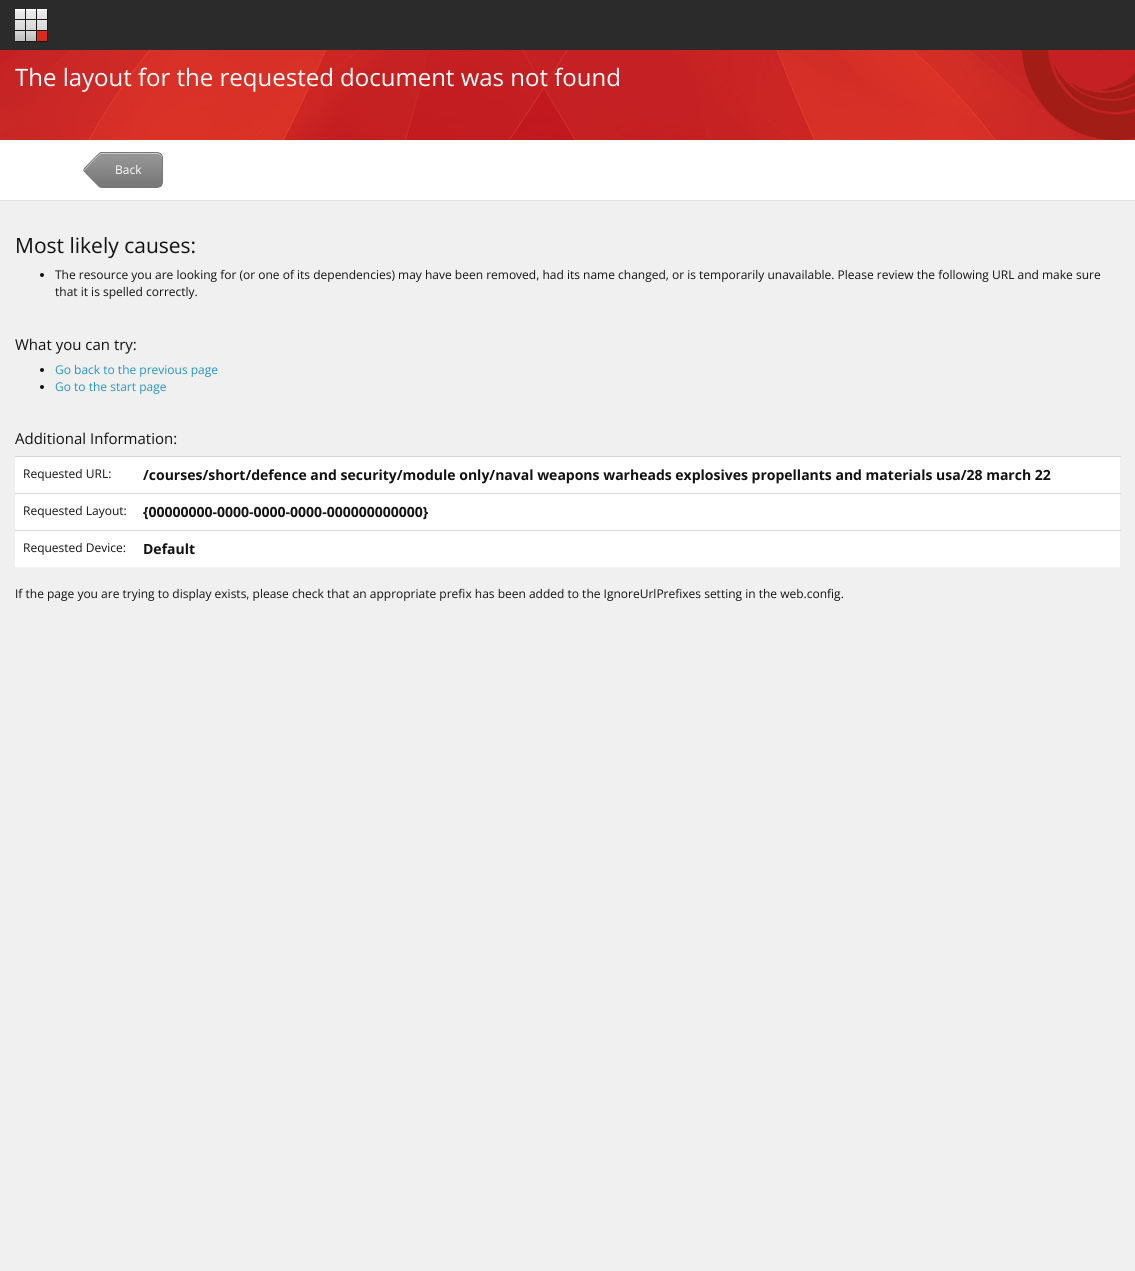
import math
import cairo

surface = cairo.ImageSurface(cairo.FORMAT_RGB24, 1135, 1271)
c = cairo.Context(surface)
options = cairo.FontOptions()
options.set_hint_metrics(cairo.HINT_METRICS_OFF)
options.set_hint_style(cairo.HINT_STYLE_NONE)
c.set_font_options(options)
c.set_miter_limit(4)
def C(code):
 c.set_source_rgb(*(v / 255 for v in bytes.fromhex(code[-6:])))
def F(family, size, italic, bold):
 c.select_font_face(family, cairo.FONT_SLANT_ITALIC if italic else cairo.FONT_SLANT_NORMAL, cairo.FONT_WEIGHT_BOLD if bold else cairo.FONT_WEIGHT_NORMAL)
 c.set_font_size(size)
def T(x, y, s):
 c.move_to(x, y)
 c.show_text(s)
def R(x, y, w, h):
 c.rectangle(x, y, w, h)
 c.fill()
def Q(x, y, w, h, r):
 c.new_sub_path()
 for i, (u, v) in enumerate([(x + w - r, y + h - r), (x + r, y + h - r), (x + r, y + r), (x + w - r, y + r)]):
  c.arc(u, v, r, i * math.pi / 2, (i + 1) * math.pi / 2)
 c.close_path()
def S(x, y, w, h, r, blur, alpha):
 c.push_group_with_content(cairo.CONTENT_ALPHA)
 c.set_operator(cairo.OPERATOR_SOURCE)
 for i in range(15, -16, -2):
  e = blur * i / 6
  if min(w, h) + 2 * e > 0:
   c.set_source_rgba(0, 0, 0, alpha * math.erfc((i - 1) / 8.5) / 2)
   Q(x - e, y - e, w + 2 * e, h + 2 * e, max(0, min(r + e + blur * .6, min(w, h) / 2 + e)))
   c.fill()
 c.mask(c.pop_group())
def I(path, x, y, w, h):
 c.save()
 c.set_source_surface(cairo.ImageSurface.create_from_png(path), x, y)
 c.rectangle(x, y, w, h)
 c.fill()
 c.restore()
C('f0f0f0')
c.paint()
C('2b2b2b')
R(0,0,1135,50)
I('1.png',15,9,33,33)
C('000000')
S(0,141,1135,60,0,2,.1)
I('2.png',0,50,1135,90)
F('Open Sans',24,0,0)
C('ffffff')
T(15,86,'The layout for the requested document was not found')
I('3.png',1022,50,113,90)
R(0,140,1135,60)
I('4.png',83,152,19,36)
I('5.png',102,152,54,36)
F('Open Sans',12,0,0)
T(115,174,'Back')
I('6.png',156,152,7,36)
C('f0f0f0')
R(0,201,1135,2)
F('Open Sans',21,0,0)
C('121212')
T(15,253,'Most likely causes:')
c.new_path()
c.arc(42,275,2,0,2 * math.pi)
c.fill()
F('Open Sans',12,0,0)
T(55,279,'The resource you are looking for (or one of its dependencies) may have been removed, had its name changed, or is temporarily unavailable. Please review the following URL and make sure')
T(55,296,'that it is spelled correctly.')
F('Open Sans',15,0,0)
T(15,350,'What you can try:')
c.new_path()
c.arc(42,370,2,0,2 * math.pi)
c.fill()
F('Open Sans',12,0,0)
C('2694c0')
T(55,374,'Go back to the previous page')
C('121212')
c.new_path()
c.arc(42,387,2,0,2 * math.pi)
c.fill()
C('2694c0')
T(55,391,'Go to the start page')
F('Open Sans',15,0,0)
C('121212')
T(15,444,'Additional Information:')
C('ffffff')
R(15,457,1105,110)
F('Open Sans',12,0,0)
C('121212')
T(23,478,'Requested URL:')
C('d6d6d6')
R(15,456,1106,1)
F('Open Sans',14,0,1)
C('121212')
T(143,480,'/courses/short/defence and security/module only/naval weapons warheads explosives propellants and materials usa/28 march 22')
F('Open Sans',12,0,0)
T(23,515,'Requested Layout:')
C('d6d6d6')
R(15,493,1106,1)
F('Open Sans',14,0,1)
C('121212')
T(143,517,'{00000000-0000-0000-0000-000000000000}')
F('Open Sans',12,0,0)
T(23,552,'Requested Device:')
C('d6d6d6')
R(15,530,1106,1)
F('Open Sans',14,0,1)
C('121212')
T(143,554,'Default')
F('Open Sans',12,0,0)
T(15,598,'If the page you are trying to display exists, please check that an appropriate prefix has been added to the IgnoreUrlPrefixes setting in the web.config.')
surface.write_to_png('o.png')
